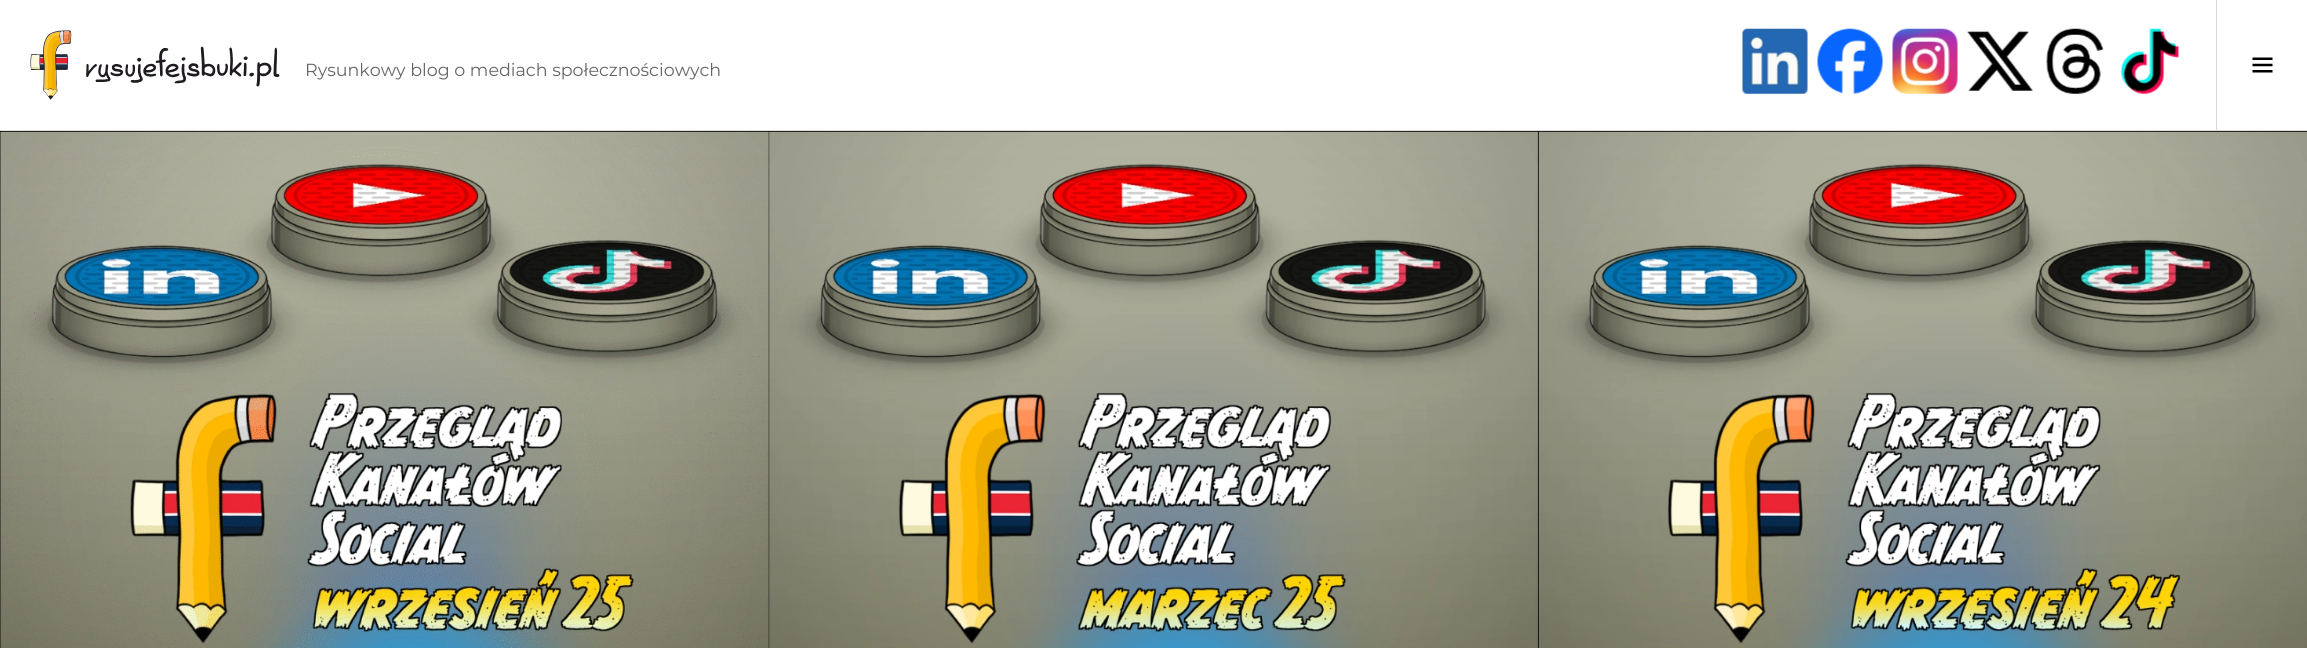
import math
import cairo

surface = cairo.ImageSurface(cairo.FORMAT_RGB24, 2307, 648)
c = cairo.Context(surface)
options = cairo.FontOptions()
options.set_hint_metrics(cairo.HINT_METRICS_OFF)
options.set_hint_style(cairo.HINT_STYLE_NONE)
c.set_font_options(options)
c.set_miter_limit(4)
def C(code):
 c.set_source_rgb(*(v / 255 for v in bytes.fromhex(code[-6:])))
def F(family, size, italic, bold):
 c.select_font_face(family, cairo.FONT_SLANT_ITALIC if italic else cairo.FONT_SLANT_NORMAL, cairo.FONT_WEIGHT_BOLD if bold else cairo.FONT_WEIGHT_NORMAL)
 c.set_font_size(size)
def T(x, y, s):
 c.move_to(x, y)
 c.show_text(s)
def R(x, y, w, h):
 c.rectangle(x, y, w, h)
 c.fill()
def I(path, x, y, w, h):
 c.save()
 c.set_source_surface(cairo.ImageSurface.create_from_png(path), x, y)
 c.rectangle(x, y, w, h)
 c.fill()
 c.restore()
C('000000')
c.paint()
C('ffffff')
R(0,0,2307,130)
C('d9d9d9')
R(0,130,2307,1)
I('1.png',30,30,250,70)
F('Montserrat',17.5,0,0)
C('666666')
T(305,76,'Rysunkowy blog o mediach społecznościowych')
C('d9d9d9')
R(2216,0,1,130)
I('2.png',2252,57,21,16)
I('3.png',0,131,769,517)
I('4.png',769,131,769,517)
I('5.png',1538,131,769,517)
I('6.png',1742,28,66,66)
I('7.png',1817,28,66,66)
I('8.png',1892,28,66,66)
I('9.png',1967,30,66,61)
I('10.png',2046,28,58,66)
I('11.png',2120,28,59,66)
surface.write_to_png('o.png')
